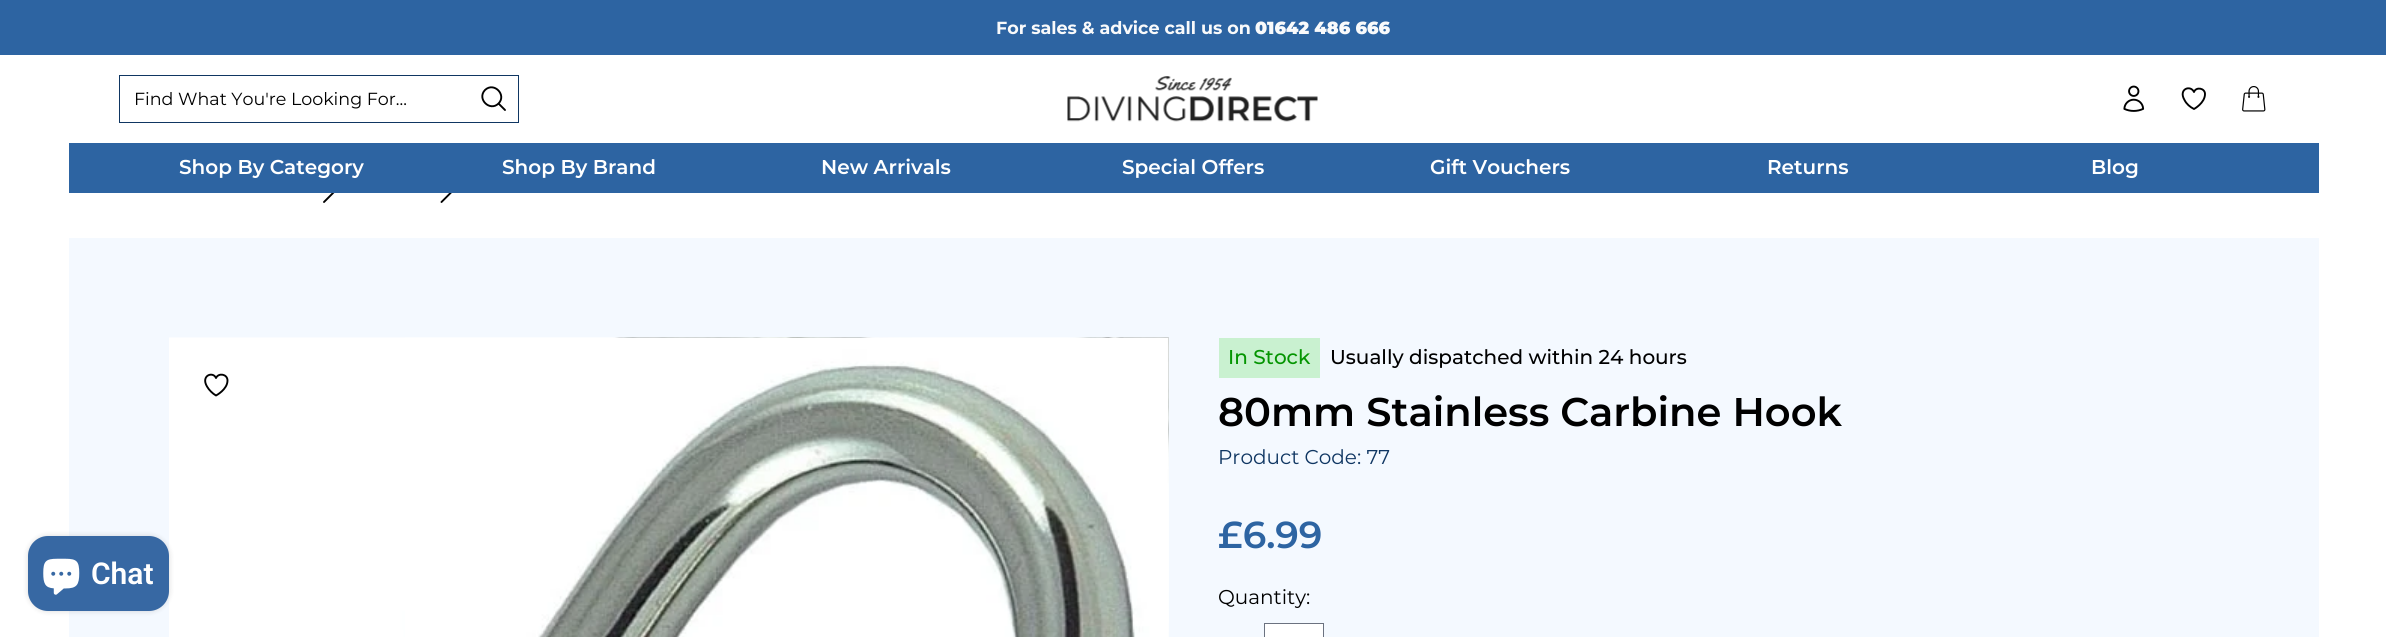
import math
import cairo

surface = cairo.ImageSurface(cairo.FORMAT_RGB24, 2386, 637)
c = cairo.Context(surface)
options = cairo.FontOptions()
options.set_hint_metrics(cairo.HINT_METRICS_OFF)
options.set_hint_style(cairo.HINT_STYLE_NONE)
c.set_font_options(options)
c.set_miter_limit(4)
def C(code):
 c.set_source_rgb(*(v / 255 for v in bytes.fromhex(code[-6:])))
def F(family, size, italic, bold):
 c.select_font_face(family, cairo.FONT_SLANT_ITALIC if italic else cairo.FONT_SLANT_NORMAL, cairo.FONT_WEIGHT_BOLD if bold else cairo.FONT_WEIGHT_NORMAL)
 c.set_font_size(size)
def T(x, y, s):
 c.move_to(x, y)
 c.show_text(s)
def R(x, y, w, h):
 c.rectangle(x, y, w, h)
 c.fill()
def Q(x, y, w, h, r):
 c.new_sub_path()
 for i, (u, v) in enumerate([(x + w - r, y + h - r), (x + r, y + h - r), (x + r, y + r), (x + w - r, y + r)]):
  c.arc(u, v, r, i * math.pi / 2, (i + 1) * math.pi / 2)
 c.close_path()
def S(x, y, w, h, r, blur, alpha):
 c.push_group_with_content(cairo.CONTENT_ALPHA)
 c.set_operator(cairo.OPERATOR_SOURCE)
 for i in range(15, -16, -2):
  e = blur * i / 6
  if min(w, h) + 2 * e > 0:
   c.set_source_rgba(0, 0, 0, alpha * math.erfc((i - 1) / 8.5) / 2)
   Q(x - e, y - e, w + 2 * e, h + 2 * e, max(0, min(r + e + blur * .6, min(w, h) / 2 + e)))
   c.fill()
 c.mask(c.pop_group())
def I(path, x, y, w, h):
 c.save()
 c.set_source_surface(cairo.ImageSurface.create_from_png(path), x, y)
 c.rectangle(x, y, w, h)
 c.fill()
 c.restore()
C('ffffff')
c.paint()
C('f4f9ff')
R(69,238,2250,399)
I('5.png',169,337,1000,300)
C('000000')
S(28,536,141,75,20,3,.15)
C('3768a3')
Q(28,536,141,75,20)
c.fill()
I('1.png',43,558,37,37)
F('Roboto SemiBold',30,0,0)
C('ffffff')
T(91,584,'Chat')
C('2d64a2')
R(0,0,2386,55)
F('Montserrat',17.5,0,1)
C('f9fafb')
T(996,34,'For sales & advice call us on')
F('Montserrat Black',17.5,0,0)
T(1255,34,'01642 486 666')
c.new_path()
c.move_to(324,183)
c.line_to(333.5,192.5)
c.line_to(324,202)
C('000000')
c.set_line_width(1.9)
c.set_line_cap(cairo.LINE_CAP_ROUND)
c.set_line_join(cairo.LINE_JOIN_ROUND)
c.stroke()
c.new_path()
c.move_to(441.5,183)
c.line_to(451,192.5)
c.line_to(441.5,202)
c.stroke()
C('ffffff')
R(323,182,129,11)
c.rectangle(119.5,75.5,399,47)
C('0f3662')
c.set_line_width(1)
c.set_line_cap(cairo.LINE_CAP_BUTT)
c.set_line_join(cairo.LINE_JOIN_MITER)
c.stroke()
F('Montserrat',17.5,0,0)
C('000000')
T(134,105,'Find What You\'re Looking For...')
c.new_path()
c.move_to(505,110)
c.line_to(498.5,103.5)
c.move_to(498.5,103.5)
c.curve_to(507,95,494,81.5,485,90)
c.curve_to(476.5,99,490,112,498.5,103.5)
c.close_path()
c.set_line_width(1.9)
c.set_line_cap(cairo.LINE_CAP_ROUND)
c.set_line_join(cairo.LINE_JOIN_ROUND)
c.stroke()
I('2.png',1067,76,251,46)
I('3.png',2123,85,22,27)
c.new_path()
c.move_to(2205,94)
c.curve_to(2205,88,2196,86.5,2194,92)
c.curve_to(2190.5,84.5,2178,89,2184.5,100)
c.curve_to(2186.5,104,2190,107,2194,109)
c.curve_to(2194,109,2205,103,2205,94)
c.close_path()
c.stroke()
I('4.png',2242,86,24,26)
C('2d64a2')
R(69,143,2250,50)
F('Montserrat SemiBold',20,0,0)
C('ffffff')
T(179,174,'Shop By Category')
T(502,174,'Shop By Brand')
T(821,174,'New Arrivals')
T(1122,174,'Special Offers')
T(1430,174,'Gift Vouchers')
T(1767,174,'Returns')
T(2091,174,'Blog')
I('6.png',405,337,764,300)
c.new_path()
c.move_to(227.5,380.5)
c.curve_to(227.5,374,218.5,372.5,216,378)
c.curve_to(213,371,200.5,375.5,207,386.5)
c.curve_to(209,390,212.5,393.5,216,395.5)
c.curve_to(216,395.5,227.5,389.5,227.5,380.5)
c.close_path()
C('000000')
c.stroke()
C('c9f1d0')
R(1219,338,101,40)
F('Montserrat Medium',20,0,0)
C('049501')
T(1228,364,'In Stock')
C('000000')
T(1330,364,'Usually dispatched within 24 hours')
F('Montserrat SemiBold',40,0,0)
T(1218,426,'80mm Stainless Carbine Hook')
F('Montserrat',20,0,0)
C('0f3662')
T(1218,464,'Product Code: 77')
F('Montserrat SemiBold',37.5,0,0)
C('2d64a2')
T(1218,548,'£6.99')
F('Montserrat',20,0,0)
C('000000')
T(1218,604,'Quantity:')
C('ffffff')
c.rectangle(1264.5,623.5,59,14)
c.fill_preserve()
C('6b7280')
c.set_line_width(1)
c.set_line_cap(cairo.LINE_CAP_BUTT)
c.set_line_join(cairo.LINE_JOIN_MITER)
c.stroke()
surface.write_to_png('o.png')
